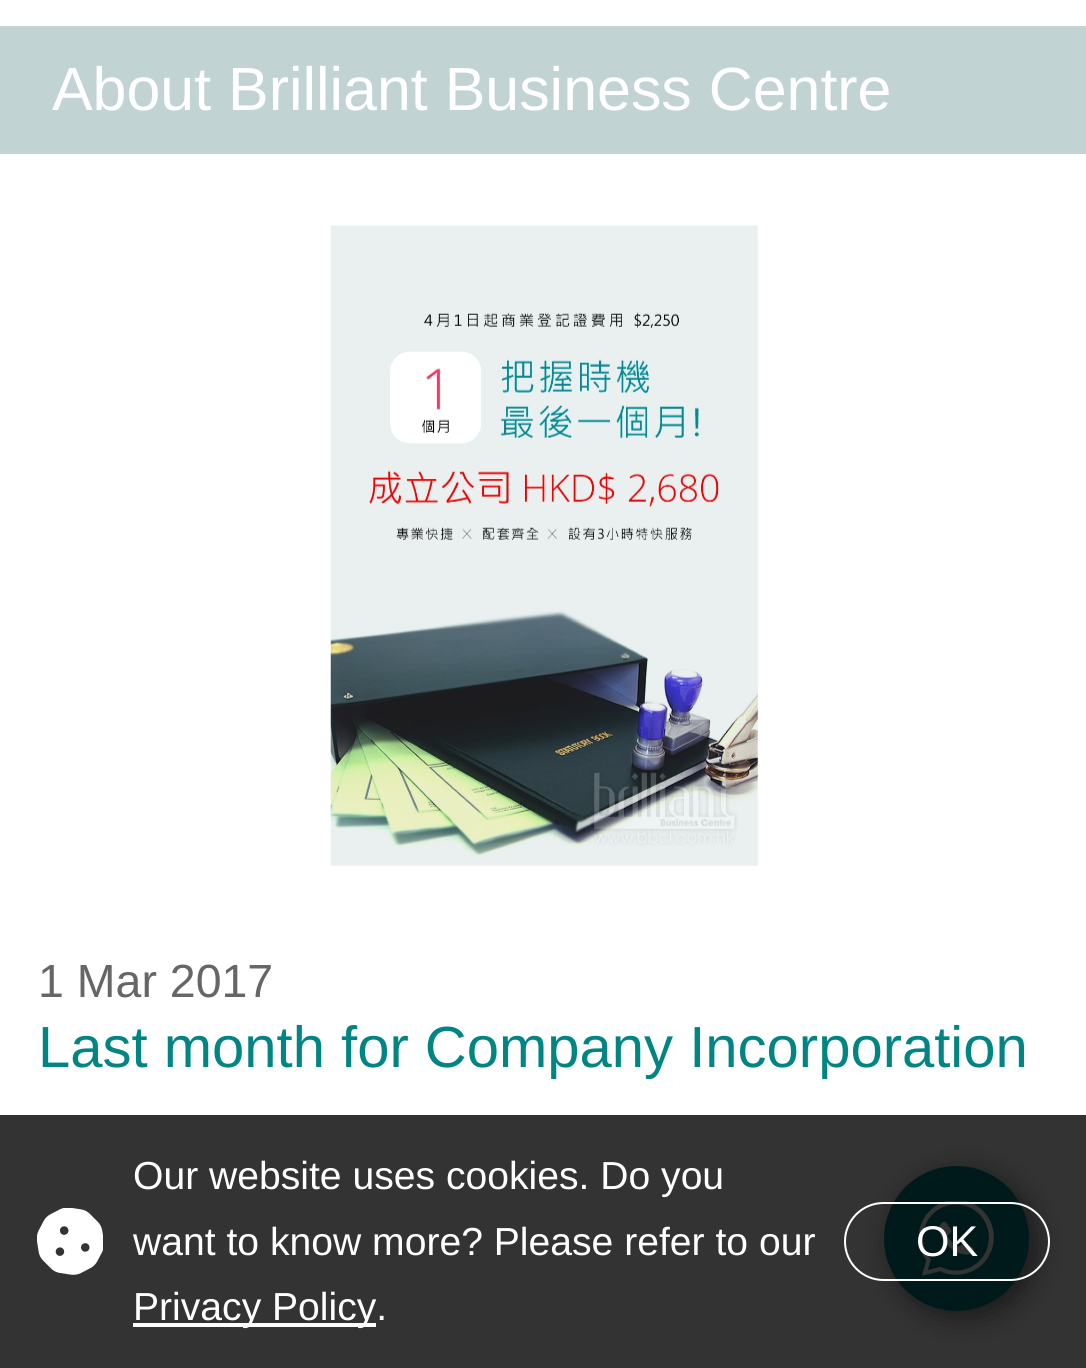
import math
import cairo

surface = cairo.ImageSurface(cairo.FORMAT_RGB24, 1086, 1368)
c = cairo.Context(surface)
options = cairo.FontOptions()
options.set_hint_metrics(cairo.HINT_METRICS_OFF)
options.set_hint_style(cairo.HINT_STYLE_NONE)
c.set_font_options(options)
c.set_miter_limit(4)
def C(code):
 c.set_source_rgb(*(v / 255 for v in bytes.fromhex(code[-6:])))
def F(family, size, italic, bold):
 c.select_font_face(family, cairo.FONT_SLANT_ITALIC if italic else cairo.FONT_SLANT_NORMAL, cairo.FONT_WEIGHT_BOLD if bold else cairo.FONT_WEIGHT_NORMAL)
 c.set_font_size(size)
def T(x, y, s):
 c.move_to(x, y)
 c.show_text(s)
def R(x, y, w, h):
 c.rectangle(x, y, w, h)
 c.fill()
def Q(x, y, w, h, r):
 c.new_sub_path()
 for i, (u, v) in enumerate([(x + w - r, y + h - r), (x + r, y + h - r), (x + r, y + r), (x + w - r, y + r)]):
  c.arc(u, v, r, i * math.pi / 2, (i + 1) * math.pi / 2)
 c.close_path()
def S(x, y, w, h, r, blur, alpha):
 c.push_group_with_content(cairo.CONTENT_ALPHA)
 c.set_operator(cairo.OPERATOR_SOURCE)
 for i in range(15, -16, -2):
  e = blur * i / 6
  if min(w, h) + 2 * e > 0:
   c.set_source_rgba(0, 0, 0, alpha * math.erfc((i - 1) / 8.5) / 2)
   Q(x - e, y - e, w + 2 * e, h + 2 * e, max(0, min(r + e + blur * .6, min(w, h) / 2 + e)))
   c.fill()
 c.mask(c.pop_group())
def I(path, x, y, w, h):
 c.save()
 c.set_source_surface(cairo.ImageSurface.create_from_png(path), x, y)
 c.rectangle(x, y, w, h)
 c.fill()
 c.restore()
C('ffffff')
c.paint()
C('c2d3d4')
R(0,26,1086,128)
F('Liberation Sans',60.9,0,0)
C('ffffff')
T(52,110,'About Brilliant Business Centre')
I('1.png',330,225,428,641)
F('Liberation Sans',46.5,0,0)
C('666666')
T(38,997,'1 Mar 2017')
F('Liberation Sans',58,0,0)
C('008583')
T(38,1067,'Last month for Company Incorporation')
C('000000')
S(891,1173,145,145,72.5,14.5,.5)
C('00848c')
c.arc(956.5,1238.5,72.5,0,2 * math.pi)
c.fill()
I('2.png',919,1201,75,75)
c.set_source_rgba(0,0,0,0.8)
R(0,1115,1086,253)
I('3.png',37,1208,66,67)
F('Liberation Sans',39.1,0,0)
C('ffffff')
T(133,1189,'Our website uses cookies. Do you')
T(133,1255,'want to know more? Please refer to our')
R(133,1323,243,4)
T(133,1320,'Privacy Policy.')
Q(845,1203,204,77,38.5)
c.stroke()
F('Liberation Sans',43,0,0)
T(916,1256,'OK')
surface.write_to_png('o.png')
